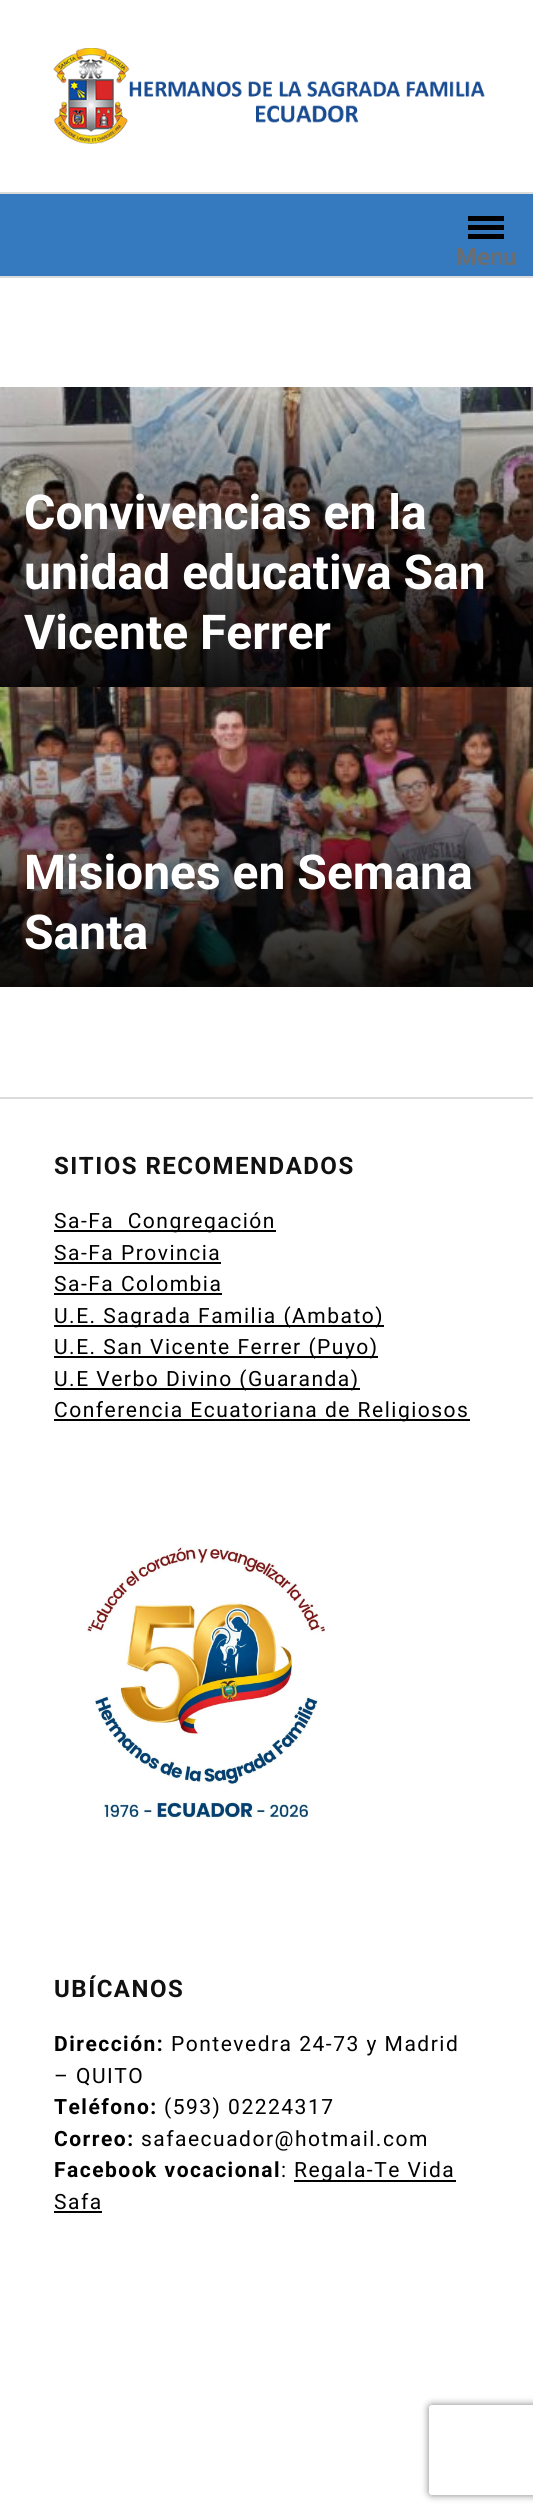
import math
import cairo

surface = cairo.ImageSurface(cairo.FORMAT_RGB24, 533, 2515)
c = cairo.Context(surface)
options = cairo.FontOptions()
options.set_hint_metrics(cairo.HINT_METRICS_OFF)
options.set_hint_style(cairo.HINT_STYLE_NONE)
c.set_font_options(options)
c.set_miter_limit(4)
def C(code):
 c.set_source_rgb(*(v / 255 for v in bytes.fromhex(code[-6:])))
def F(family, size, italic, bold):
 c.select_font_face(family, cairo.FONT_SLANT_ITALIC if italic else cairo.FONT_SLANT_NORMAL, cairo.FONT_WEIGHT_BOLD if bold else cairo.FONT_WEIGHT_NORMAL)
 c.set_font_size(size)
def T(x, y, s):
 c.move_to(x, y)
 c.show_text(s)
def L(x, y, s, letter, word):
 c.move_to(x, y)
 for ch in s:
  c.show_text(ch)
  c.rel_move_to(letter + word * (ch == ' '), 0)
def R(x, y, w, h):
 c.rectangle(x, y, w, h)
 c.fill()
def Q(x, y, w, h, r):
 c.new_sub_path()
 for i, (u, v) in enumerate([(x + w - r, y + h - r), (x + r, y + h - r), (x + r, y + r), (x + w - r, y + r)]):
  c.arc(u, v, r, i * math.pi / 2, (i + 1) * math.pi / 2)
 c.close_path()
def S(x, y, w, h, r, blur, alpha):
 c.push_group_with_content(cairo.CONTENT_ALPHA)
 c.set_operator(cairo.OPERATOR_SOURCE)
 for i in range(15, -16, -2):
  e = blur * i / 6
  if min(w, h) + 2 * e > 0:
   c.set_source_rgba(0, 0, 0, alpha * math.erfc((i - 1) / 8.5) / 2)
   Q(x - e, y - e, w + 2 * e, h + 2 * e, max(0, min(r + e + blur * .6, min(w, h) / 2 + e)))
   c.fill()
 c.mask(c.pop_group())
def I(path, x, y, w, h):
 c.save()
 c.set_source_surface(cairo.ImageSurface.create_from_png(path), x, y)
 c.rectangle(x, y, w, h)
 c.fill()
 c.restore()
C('ffffff')
c.paint()
C('dbdbdb')
R(0,192,533,2)
I('1.png',53,48,432,96)
C('357abf')
R(0,194,533,82)
C('dbdbdb')
R(0,276,533,2)
C('000000')
R(468,225,36,5)
R(468,216,36,5)
R(468,234,36,5)
F('Roboto SemiBold',24,0,0)
C('6d6d6d')
T(456,265,'Menu')
I('2.png',0,387,533,300)
F('Roboto',48,0,1)
C('ffffff')
T(24,529,'Convivencias en la')
T(24,589,'unidad educativa San')
T(24,649,'Vicente Ferrer')
I('3.png',0,687,533,300)
T(24,889,'Misiones en Semana')
T(24,949,'Santa')
C('dbdbdb')
R(0,1097,533,2)
F('Roboto',24,0,1)
C('111111')
L(54,1174,'SITIOS RECOMENDADOS',1.5,0)
C('000000')
R(54,1230,222,2)
F('Roboto',21,0,0)
L(54,1228,'Sa-Fa  Congregación',1.5,0)
L(54,1260,'Sa-Fa Provincia',1.5,0)
R(54,1262,167,2)
L(54,1291,'Sa-Fa Colombia',1.5,0)
R(54,1293,168,2)
R(54,1325,330,2)
L(54,1323,'U.E. Sagrada Familia (Ambato)',1.5,0)
R(54,1356,324,2)
L(54,1354,'U.E. San Vicente Ferrer (Puyo)',1.5,0)
R(54,1388,306,2)
L(54,1386,'U.E Verbo Divino (Guaranda)',1.5,0)
R(54,1419,416,2)
L(54,1417,'Conferencia Ecuatoriana de Religiosos',1.5,0)
I('4.png',87,1544,238,276)
F('Roboto',24,0,1)
C('111111')
L(54,1997,'UBÍCANOS',1.5,0)
F('Roboto',21,0,1)
C('000000')
L(54,2051,'Dirección:',1.5,0)
F('Roboto',21,0,0)
L(171,2051,'Pontevedra 24-73 y Madrid',1.5,0)
L(54,2083,'– QUITO',1.5,0)
F('Roboto',21,0,1)
L(54,2114,'Teléfono:',1.5,0)
F('Roboto',21,0,0)
L(164,2114,'(593) 02224317',1.5,0)
F('Roboto',21,0,1)
L(54,2146,'Correo:',1.5,0)
F('Roboto',21,0,0)
L(141,2146,'safaecuador@hotmail.com',1.5,0)
F('Roboto',21,0,1)
L(54,2177,'Facebook vocacional',1.5,0)
F('Roboto',21,0,0)
L(281,2177,':',1.5,0)
R(294,2180,162,2)
L(294,2177,'Regala-Te Vida',1.5,0)
L(54,2209,'Safa',1.5,0)
R(54,2211,48,2)
c.save()
c.set_fill_rule(cairo.FILL_RULE_EVEN_ODD)
c.new_path()
c.move_to(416,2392)
c.line_to(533,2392)
c.line_to(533,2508)
c.line_to(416,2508)
c.close_path()
c.move_to(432,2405)
c.line_to(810,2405)
c.curve_to(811.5,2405,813,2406.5,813,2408)
c.line_to(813,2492)
c.curve_to(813,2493.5,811.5,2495,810,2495)
c.line_to(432,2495)
c.curve_to(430.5,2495,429,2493.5,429,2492)
c.line_to(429,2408)
c.curve_to(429,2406.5,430.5,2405,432,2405)
c.close_path()
c.clip()
C('808080')
S(429,2405,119,90,3,4,1)
c.restore()
surface.write_to_png('o.png')
